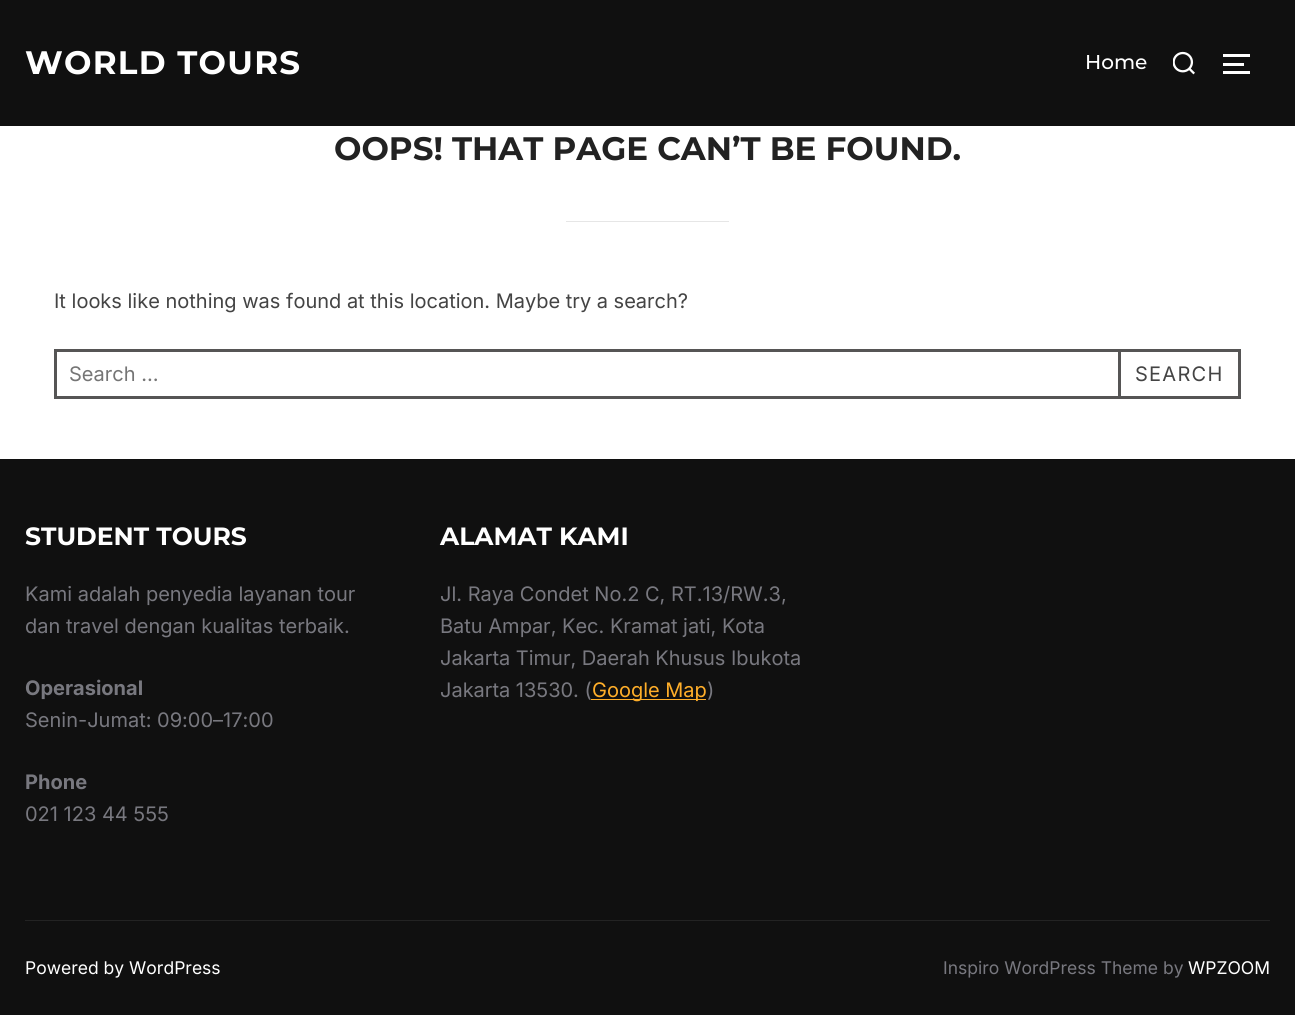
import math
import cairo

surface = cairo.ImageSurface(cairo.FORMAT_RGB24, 1295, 1036)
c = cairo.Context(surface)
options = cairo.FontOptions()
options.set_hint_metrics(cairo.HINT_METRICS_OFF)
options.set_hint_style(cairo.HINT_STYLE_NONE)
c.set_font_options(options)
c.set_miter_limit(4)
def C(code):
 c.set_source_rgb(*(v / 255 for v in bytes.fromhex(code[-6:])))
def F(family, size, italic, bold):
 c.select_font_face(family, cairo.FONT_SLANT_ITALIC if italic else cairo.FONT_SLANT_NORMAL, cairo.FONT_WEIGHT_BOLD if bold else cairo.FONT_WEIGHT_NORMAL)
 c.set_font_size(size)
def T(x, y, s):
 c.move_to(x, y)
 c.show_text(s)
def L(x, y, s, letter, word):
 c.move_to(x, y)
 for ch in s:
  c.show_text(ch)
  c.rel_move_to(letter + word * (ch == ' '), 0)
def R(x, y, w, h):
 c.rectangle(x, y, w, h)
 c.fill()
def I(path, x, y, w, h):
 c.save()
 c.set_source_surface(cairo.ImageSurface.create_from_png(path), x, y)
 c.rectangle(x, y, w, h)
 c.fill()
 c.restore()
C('ffffff')
c.paint()
C('101010')
R(0,0,1295,126)
F('Montserrat',32.5,0,1)
C('ffffff')
L(25,74,'WORLD TOURS',1.25,0)
F('Montserrat Medium',20,0,0)
T(1085,69,'Home')
I('1.png',1173,51,22,24)
R(1223,54,27,3)
R(1223,63,21,3)
R(1223,71,27,3)
F('Montserrat',32.5,0,1)
C('222222')
T(334,160,'OOPS! THAT PAGE CAN’T BE FOUND.')
C('e6e6e6')
R(566,221,163,1)
F('Inter',20,0,0)
C('444444')
T(54,308,'It looks like nothing was found at this location. Maybe try a search?')
c.rectangle(55.5,350.5,1184,47)
C('565555')
c.set_line_width(3)
c.stroke()
C('757575')
T(69,381,'Search …')
c.rectangle(1119.5,350.5,120,47)
C('565555')
c.stroke()
C('444444')
L(1135,381,'SEARCH',1.25,0)
C('101010')
R(0,459,1295,556)
F('Montserrat',25,0,1)
C('ffffff')
T(25,545,'STUDENT TOURS')
F('Inter',20,0,0)
C('78787f')
T(25,601,'Kami adalah penyedia layanan tour')
T(25,633,'dan travel dengan kualitas terbaik.')
F('Inter',20,0,1)
T(25,695,'Operasional')
F('Inter',20,0,0)
T(25,727,'Senin-Jumat: 09:00–17:00')
F('Inter',20,0,1)
T(25,789,'Phone')
F('Inter',20,0,0)
T(25,821,'021 123 44 555')
F('Montserrat',25,0,1)
C('ffffff')
T(440,545,'ALAMAT KAMI')
F('Inter',20,0,0)
C('78787f')
T(440,601,'Jl. Raya Condet No.2 C, RT.13/RW.3,')
T(440,633,'Batu Ampar, Kec. Kramat jati, Kota')
T(440,665,'Jakarta Timur, Daerah Khusus Ibukota')
T(440,697,'Jakarta 13530. (')
C('ffae29')
R(591,699,115,1)
T(592,697,'Google Map')
C('78787f')
T(707,697,')')
C('232323')
R(25,920,1245,1)
F('Inter',17.5,0,0)
C('ffffff')
T(25,974,'Powered by WordPress')
C('78787f')
T(943,974,'Inspiro WordPress Theme by')
C('ffffff')
T(1188,974,'WPZOOM')
surface.write_to_png('o.png')
